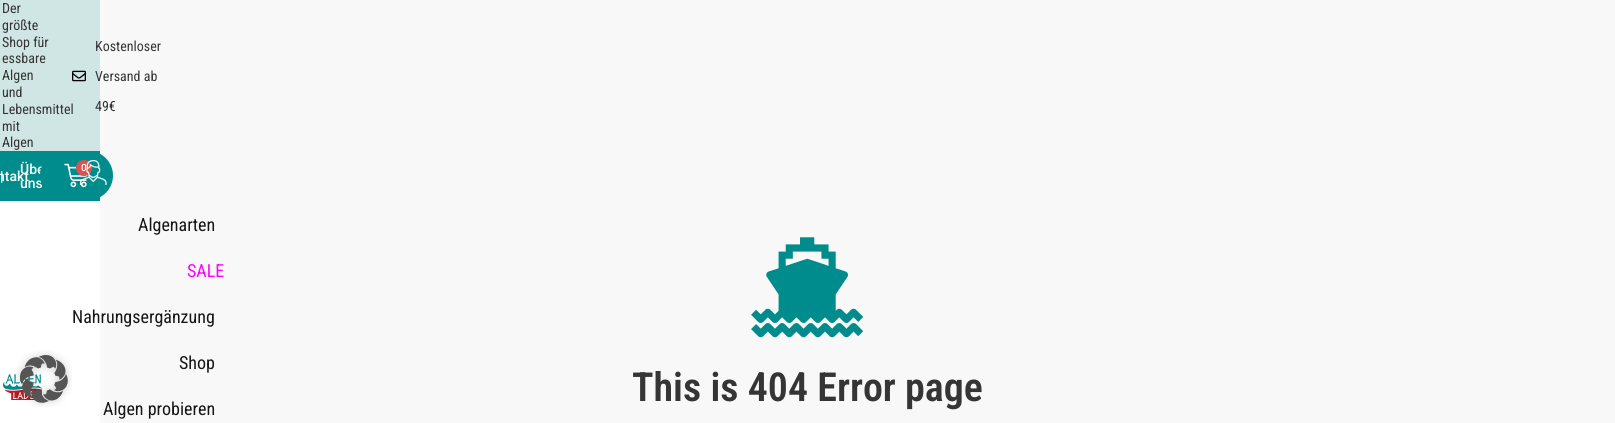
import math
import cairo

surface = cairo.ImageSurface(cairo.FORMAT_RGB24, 1615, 423)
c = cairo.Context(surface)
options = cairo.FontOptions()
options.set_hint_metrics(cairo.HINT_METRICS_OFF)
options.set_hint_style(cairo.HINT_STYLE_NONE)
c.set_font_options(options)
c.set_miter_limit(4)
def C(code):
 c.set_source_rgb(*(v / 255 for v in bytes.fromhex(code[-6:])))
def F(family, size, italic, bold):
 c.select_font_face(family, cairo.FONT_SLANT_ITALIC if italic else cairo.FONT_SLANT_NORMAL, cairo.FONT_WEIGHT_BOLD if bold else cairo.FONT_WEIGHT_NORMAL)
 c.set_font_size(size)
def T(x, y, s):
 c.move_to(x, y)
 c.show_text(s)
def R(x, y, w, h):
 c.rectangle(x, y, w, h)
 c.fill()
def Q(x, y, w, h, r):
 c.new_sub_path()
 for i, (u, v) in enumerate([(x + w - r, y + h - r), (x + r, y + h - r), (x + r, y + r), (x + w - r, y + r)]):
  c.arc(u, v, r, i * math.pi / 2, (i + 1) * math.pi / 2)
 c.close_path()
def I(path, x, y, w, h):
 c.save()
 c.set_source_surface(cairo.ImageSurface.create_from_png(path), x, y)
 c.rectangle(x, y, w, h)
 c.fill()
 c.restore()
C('f8f8f8')
c.paint()
C('d0e6e5')
R(0,0,100,151)
F('Roboto Condensed',14,0,0)
C('353535')
T(2,13,'Der')
T(2,30,'größte')
T(2,47,'Shop für')
T(2,63,'essbare')
T(2,80,'Algen')
T(2,97,'und')
T(2,114,'Lebensmittel')
T(2,131,'mit')
T(2,147,'Algen')
I('1.png',72,70,14,12)
T(95,51,'Kostenloser')
T(95,81,'Versand ab')
T(95,111,'49€')
C('008c8c')
R(0,151,100,50)
F('Roboto Medium',14,0,0)
C('ffffff')
T(-3,181,'ntakt')
T(20,174,'Übe')
T(20,188,'uns')
C('008c8c')
Q(40,151,73,49,24.5)
c.fill()
I('3.png',64,163,24,25)
C('d9534f')
c.arc(84,168,8,0,2 * math.pi)
c.fill()
F('Roboto Medium',10,0,0)
C('ffffff')
T(81,171,'0')
I('2.png',80,160,27,25)
F('Roboto Medium',14,0,0)
T(0,181,'|')
R(0,201,100,222)
I('4.png',3,374,39,26)
F('Roboto Condensed',18,0,0)
C('161616')
T(138,231,'Algenarten')
C('ff00ff')
T(187,277,'SALE')
C('161616')
T(72,323,'Nahrungsergänzung')
T(179,369,'Shop')
T(103,415,'Algen probieren')
I('5.png',15,350,57,57)
I('6.png',751,237,113,101)
F('Roboto Condensed SemiBold',40,0,0)
C('353535')
T(632,401,'This is 404 Error page')
surface.write_to_png('o.png')
